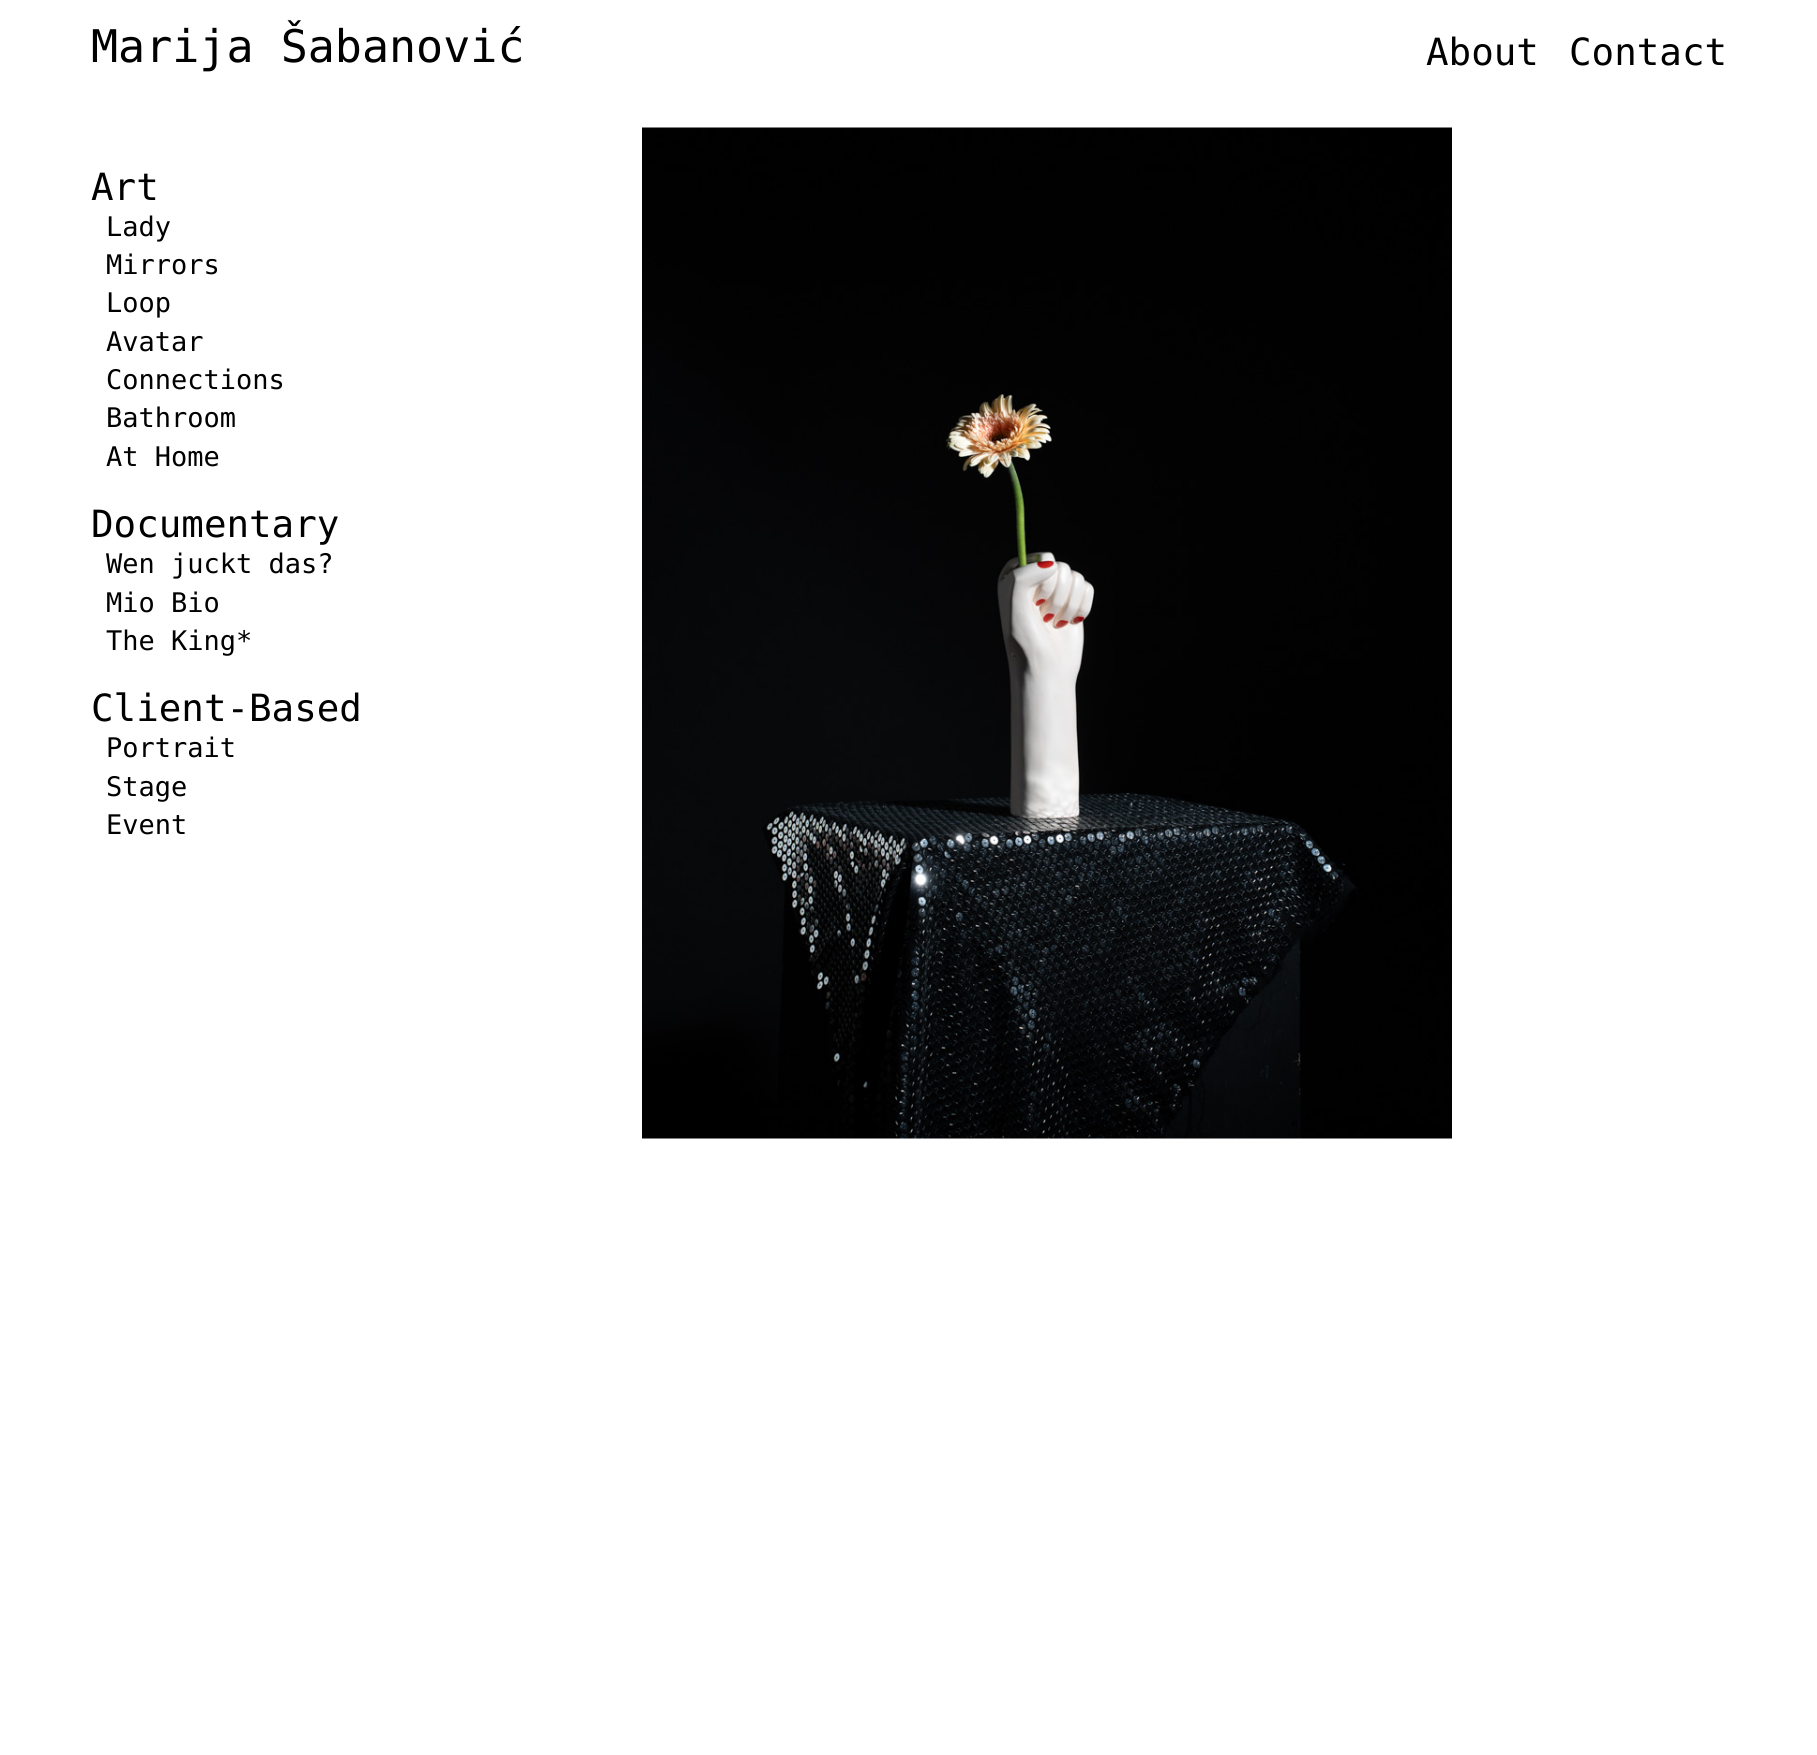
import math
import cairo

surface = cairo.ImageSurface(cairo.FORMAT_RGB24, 1817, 1755)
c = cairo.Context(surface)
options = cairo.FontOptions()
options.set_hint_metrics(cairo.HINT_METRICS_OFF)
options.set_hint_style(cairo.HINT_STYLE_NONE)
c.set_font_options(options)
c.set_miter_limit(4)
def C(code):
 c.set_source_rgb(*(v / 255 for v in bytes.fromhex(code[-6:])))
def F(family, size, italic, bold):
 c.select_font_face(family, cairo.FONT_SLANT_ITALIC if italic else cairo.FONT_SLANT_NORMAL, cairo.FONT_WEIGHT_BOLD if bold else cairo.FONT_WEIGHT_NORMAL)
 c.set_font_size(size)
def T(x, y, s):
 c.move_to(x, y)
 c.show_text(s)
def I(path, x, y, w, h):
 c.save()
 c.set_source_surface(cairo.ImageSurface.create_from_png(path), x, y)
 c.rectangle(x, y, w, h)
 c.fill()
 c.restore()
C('ffffff')
c.paint()
F('DejaVu Sans Mono',45,0,0)
C('000000')
T(91,62,'Marija Šabanović')
F('DejaVu Sans Mono',37.5,0,0)
T(1426,65,'About')
T(1569,65,'Contact')
T(91,200,'Art')
F('DejaVu Sans Mono',27,0,0)
T(106,236,'Lady')
T(106,274,'Mirrors')
T(106,312,'Loop')
T(106,351,'Avatar')
T(106,389,'Connections')
T(106,427,'Bathroom')
T(106,466,'At Home')
F('DejaVu Sans Mono',37.5,0,0)
T(91,537,'Documentary')
F('DejaVu Sans Mono',27,0,0)
T(106,573,'Wen juckt das?')
T(106,612,'Mio Bio')
T(106,650,'The King*')
F('DejaVu Sans Mono',37.5,0,0)
T(91,721,'Client-Based')
F('DejaVu Sans Mono',27,0,0)
T(106,757,'Portrait')
T(106,796,'Stage')
T(106,834,'Event')
I('1.png',642,127,810,1012)
surface.write_to_png('o.png')
